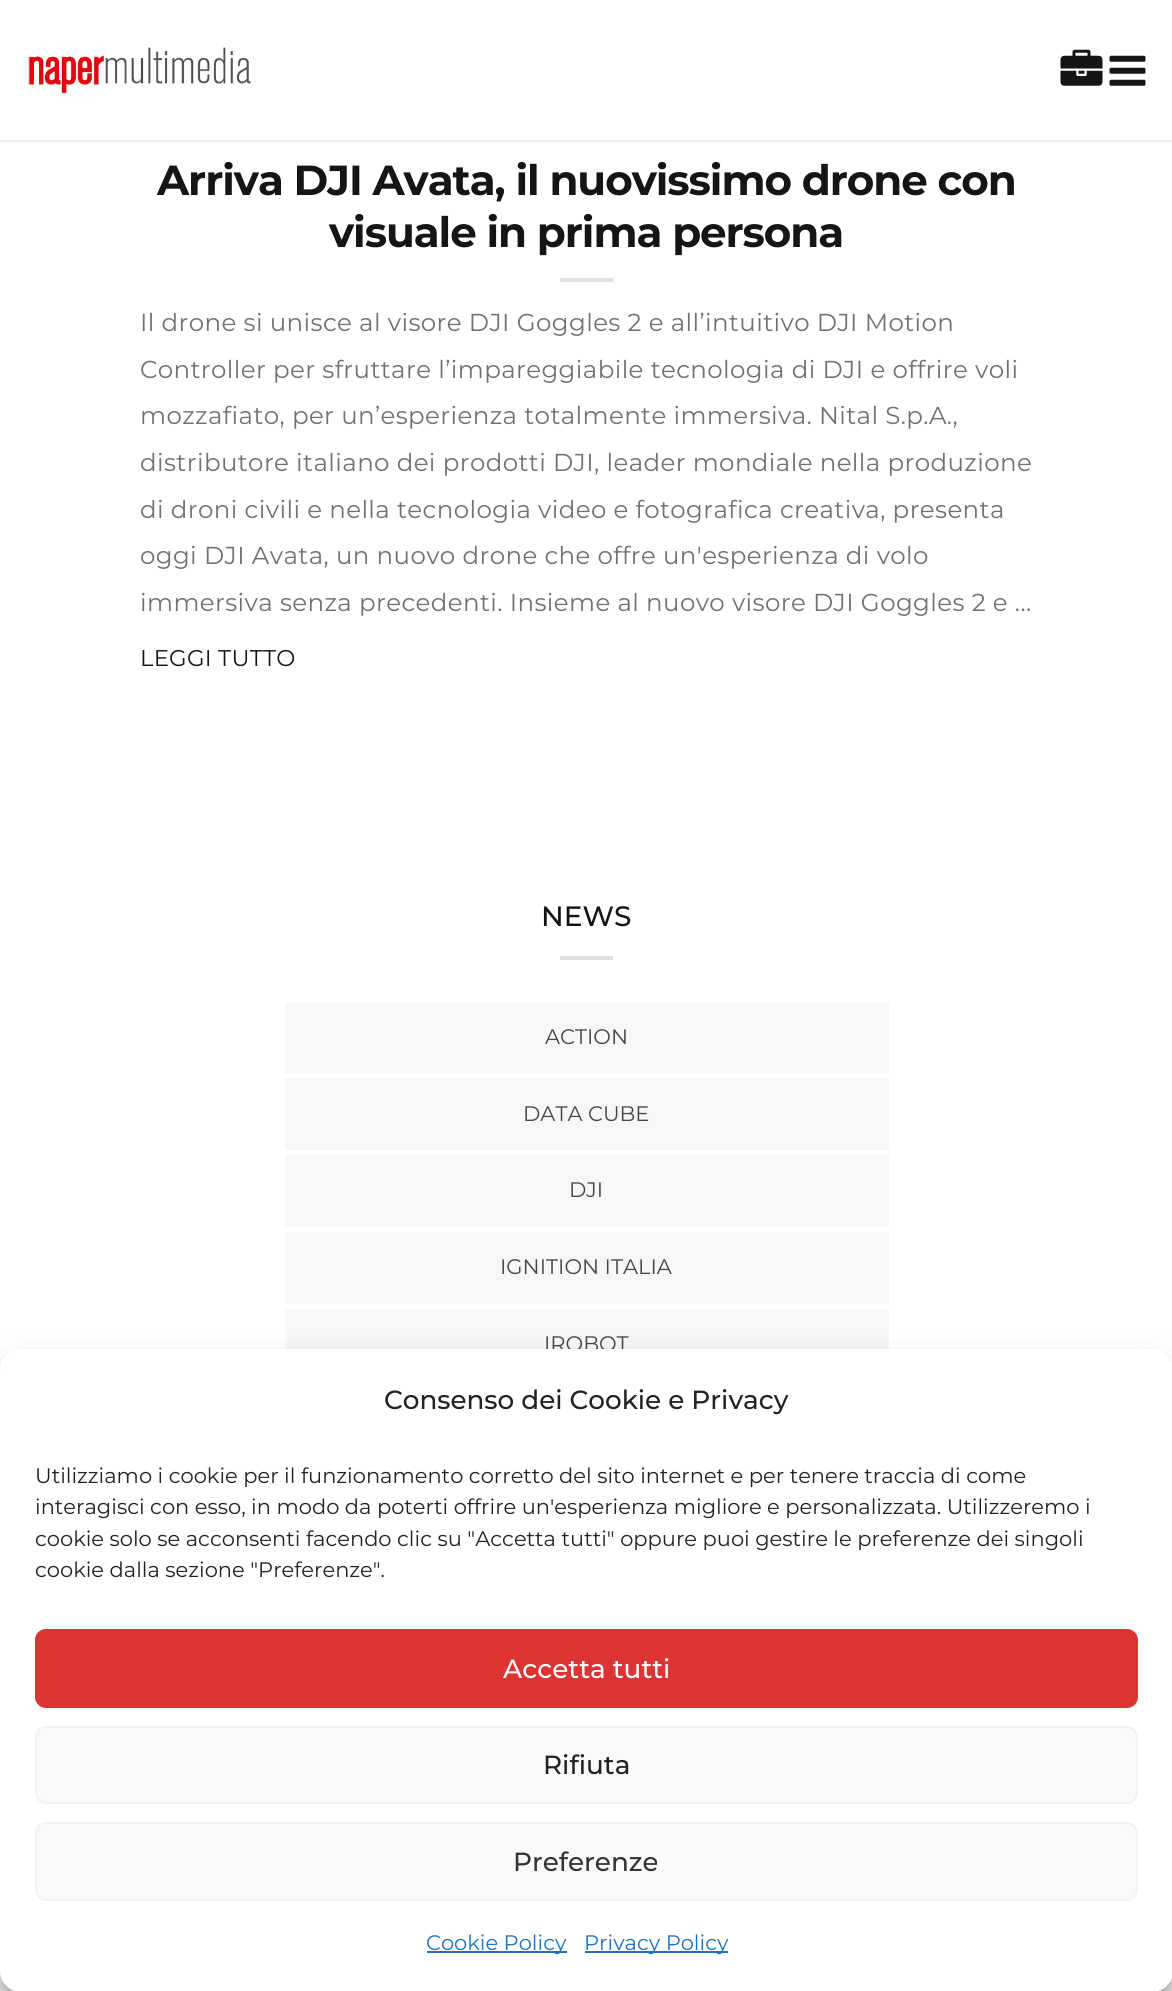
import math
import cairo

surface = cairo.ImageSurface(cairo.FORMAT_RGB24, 1172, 1991)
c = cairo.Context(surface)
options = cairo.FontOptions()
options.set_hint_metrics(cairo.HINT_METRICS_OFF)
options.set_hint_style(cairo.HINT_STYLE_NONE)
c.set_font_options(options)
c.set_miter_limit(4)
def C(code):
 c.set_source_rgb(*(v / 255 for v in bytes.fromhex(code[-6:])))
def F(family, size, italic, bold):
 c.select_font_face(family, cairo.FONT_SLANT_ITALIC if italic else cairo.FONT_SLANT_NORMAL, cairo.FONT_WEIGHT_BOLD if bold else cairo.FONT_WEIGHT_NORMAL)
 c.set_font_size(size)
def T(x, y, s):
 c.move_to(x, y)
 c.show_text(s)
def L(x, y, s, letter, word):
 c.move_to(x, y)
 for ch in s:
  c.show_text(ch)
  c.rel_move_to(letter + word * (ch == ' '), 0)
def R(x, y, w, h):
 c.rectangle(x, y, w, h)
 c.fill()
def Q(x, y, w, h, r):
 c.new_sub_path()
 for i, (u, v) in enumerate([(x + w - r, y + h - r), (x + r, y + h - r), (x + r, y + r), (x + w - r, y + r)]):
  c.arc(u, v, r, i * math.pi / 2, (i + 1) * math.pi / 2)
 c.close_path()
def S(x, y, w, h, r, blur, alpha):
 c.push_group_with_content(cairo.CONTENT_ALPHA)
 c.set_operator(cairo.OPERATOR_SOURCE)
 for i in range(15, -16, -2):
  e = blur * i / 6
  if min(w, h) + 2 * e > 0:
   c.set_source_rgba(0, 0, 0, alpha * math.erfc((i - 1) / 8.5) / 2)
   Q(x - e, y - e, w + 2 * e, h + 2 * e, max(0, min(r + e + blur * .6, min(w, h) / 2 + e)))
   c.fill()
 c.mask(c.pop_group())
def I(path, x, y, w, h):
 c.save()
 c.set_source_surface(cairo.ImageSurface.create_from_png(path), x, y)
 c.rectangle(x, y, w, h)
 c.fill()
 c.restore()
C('ffffff')
c.paint()
C('eeeeee')
R(0,140,1172,2)
I('1.png',28,47,223,47)
I('2.png',1060,49,43,37)
I('3.png',1109,55,37,31)
F('Montserrat',42,0,1)
C('151515')
L(157,195,'Arriva DJI Avata, il nuovissimo drone con',-1.05,0)
L(329,247,'visuale in prima persona',-1.05,0)
C('e1e1e1')
R(560,278,53,4)
F('Montserrat',24.5,0,0)
C('717171')
L(140,331,'Il drone si unisce al visore DJI Goggles 2 e all’intuitivo DJI Motion',.4,0)
L(140,378,'Controller per sfruttare l’impareggiabile tecnologia di DJI e offrire voli',.4,0)
L(140,424,'mozzafiato, per un’esperienza totalmente immersiva. Nital S.p.A.,',.4,0)
L(140,471,'distributore italiano dei prodotti DJI, leader mondiale nella produzione',.4,0)
L(140,518,'di droni civili e nella tecnologia video e fotografica creativa, presenta',.4,0)
L(140,564,'oggi DJI Avata, un nuovo drone che offre un\'esperienza di volo',.4,0)
L(140,611,'immersiva senza precedenti. Insieme al nuovo visore DJI Goggles 2 e ...',.4,0)
F('Montserrat',22.75,0,0)
C('151515')
L(140,666,'LEGGI TUTTO',.25,0)
F('Montserrat Medium',28,0,0)
T(541,926,'NEWS')
C('e1e1e1')
R(560,956,53,4)
C('f7f7f7')
R(285,1003,604,70)
F('Montserrat',21,0,0)
C('464646')
T(545,1044,'ACTION')
C('f7f7f7')
R(285,1078,604,72)
C('464646')
T(523,1121,'DATA CUBE')
C('f7f7f7')
R(285,1155,604,72)
C('464646')
T(569,1197,'DJI')
C('f7f7f7')
R(285,1232,604,72)
C('464646')
T(500,1274,'IGNITION ITALIA')
C('f7f7f7')
R(285,1309,604,40)
C('464646')
T(544,1351,'IROBOT')
C('000000')
S(0,1360,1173,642,21,5,.23)
S(0,1367,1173,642,21,17.5,.19)
C('ffffff')
Q(0,1349,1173,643,21)
c.fill()
F('Montserrat Medium',26.25,0,0)
C('222222')
T(384,1409,'Consenso dei Cookie e Privacy')
F('Montserrat',21,0,0)
T(35,1483,'Utilizziamo i cookie per il funzionamento corretto del sito internet e per tenere traccia di come')
T(35,1514,'interagisci con esso, in modo da poterti offrire un\'esperienza migliore e personalizzata. Utilizzeremo i')
T(35,1546,'cookie solo se acconsenti facendo clic su "Accetta tutti" oppure puoi gestire le preferenze dei singoli')
T(35,1577,'cookie dalla sezione "Preferenze".')
C('dd3333')
Q(36,1630,1101,77,10)
c.fill_preserve()
c.stroke()
F('Montserrat Medium',26.25,0,0)
C('ffffff')
T(503,1678,'Accetta tutti')
C('f9f9f9')
Q(36,1727,1101,76,10)
c.fill_preserve()
C('f2f2f2')
c.stroke()
C('222222')
T(543,1774,'Rifiuta')
C('f9f9f9')
Q(36,1823,1101,77,10)
c.fill_preserve()
C('f2f2f2')
c.stroke()
C('333333')
T(513,1871,'Preferenze')
C('1e73be')
R(427,1951,140,2)
F('Montserrat',21,0,0)
T(426,1950,'Cookie Policy')
R(585,1951,143,2)
T(584,1950,'Privacy Policy')
surface.write_to_png('o.png')
